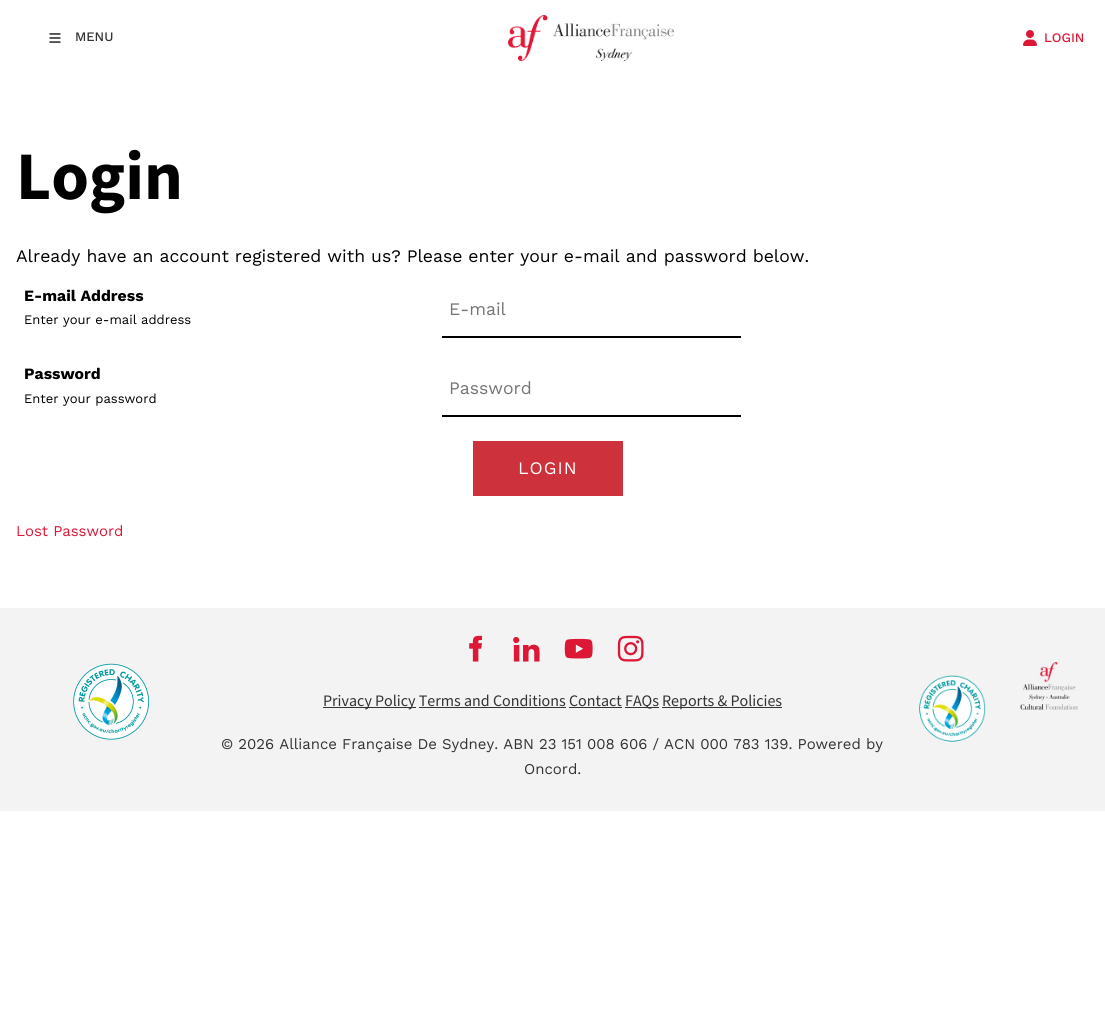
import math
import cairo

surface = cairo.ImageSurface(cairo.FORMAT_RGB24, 1105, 1032)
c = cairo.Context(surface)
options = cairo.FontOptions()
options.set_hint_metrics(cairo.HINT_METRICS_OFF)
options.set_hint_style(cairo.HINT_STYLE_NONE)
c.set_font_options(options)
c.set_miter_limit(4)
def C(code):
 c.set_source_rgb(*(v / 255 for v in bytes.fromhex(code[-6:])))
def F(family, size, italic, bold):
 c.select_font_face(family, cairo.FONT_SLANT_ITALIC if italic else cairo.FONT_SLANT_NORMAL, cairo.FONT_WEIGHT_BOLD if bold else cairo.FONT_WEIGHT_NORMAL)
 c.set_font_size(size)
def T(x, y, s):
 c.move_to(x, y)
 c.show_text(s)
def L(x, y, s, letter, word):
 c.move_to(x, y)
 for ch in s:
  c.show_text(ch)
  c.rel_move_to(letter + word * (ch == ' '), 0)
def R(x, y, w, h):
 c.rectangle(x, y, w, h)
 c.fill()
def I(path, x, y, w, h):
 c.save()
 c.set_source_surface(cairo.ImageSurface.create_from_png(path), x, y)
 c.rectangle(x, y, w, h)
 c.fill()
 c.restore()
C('ffffff')
c.paint()
I('1.png',49,33,12,10)
F('Work Sans Medium',13,0,0)
C('333333')
T(75,41,'MENU')
I('2.png',508,15,166,46)
I('3.png',1023,30,14,16)
C('dc1836')
T(1044,42,'LOGIN')
F('Mada',68,0,1)
C('000000')
T(16,199,'Login')
F('Work Sans',17.6,0,0)
T(16,262,'Already have an account registered with us? Please enter your e-mail and password below.')
F('Work Sans',15.75,0,1)
T(24,301,'E-mail Address')
F('Work Sans',13,0,0)
T(24,324,'Enter your e-mail address')
R(442,336,299,2)
F('Work Sans',17.6,0,0)
C('757575')
T(449,315,'E-mail')
F('Work Sans',15.75,0,1)
C('000000')
T(24,379,'Password')
F('Work Sans',13,0,0)
T(24,403,'Enter your password')
R(442,415,299,2)
F('Work Sans',17.6,0,0)
C('757575')
T(449,394,'Password')
C('cd323c')
R(473,441,150,55)
C('ffffff')
L(518,474,'LOGIN',1,0)
F('Work Sans',14.95,0,0)
C('dc1836')
T(16,536,'Lost Password')
C('f3f3f3')
R(0,608,1105,203)
I('4.png',73,663,77,77)
I('5.png',469,635,14,27)
I('6.png',513,637,27,25)
I('7.png',564,638,29,21)
I('8.png',617,635,27,27)
C('333333')
R(323,707,93,1)
F('Mada',16,0,0)
T(323,706,'Privacy Policy Terms and Conditions Contact')
R(625,707,34,1)
T(625,706,'FAQs')
R(662,707,120,1)
T(662,706,'Reports & Policies')
R(419,707,147,1)
R(569,707,53,1)
F('Work Sans',14.95,0,0)
T(221,749,'© 2026 Alliance Française De Sydney. ABN 23 151 008 606 / ACN 000 783 139. Powered by')
T(524,774,'Oncord.')
I('9.png',919,675,67,67)
I('10.png',1020,662,58,48)
surface.write_to_png('o.png')
